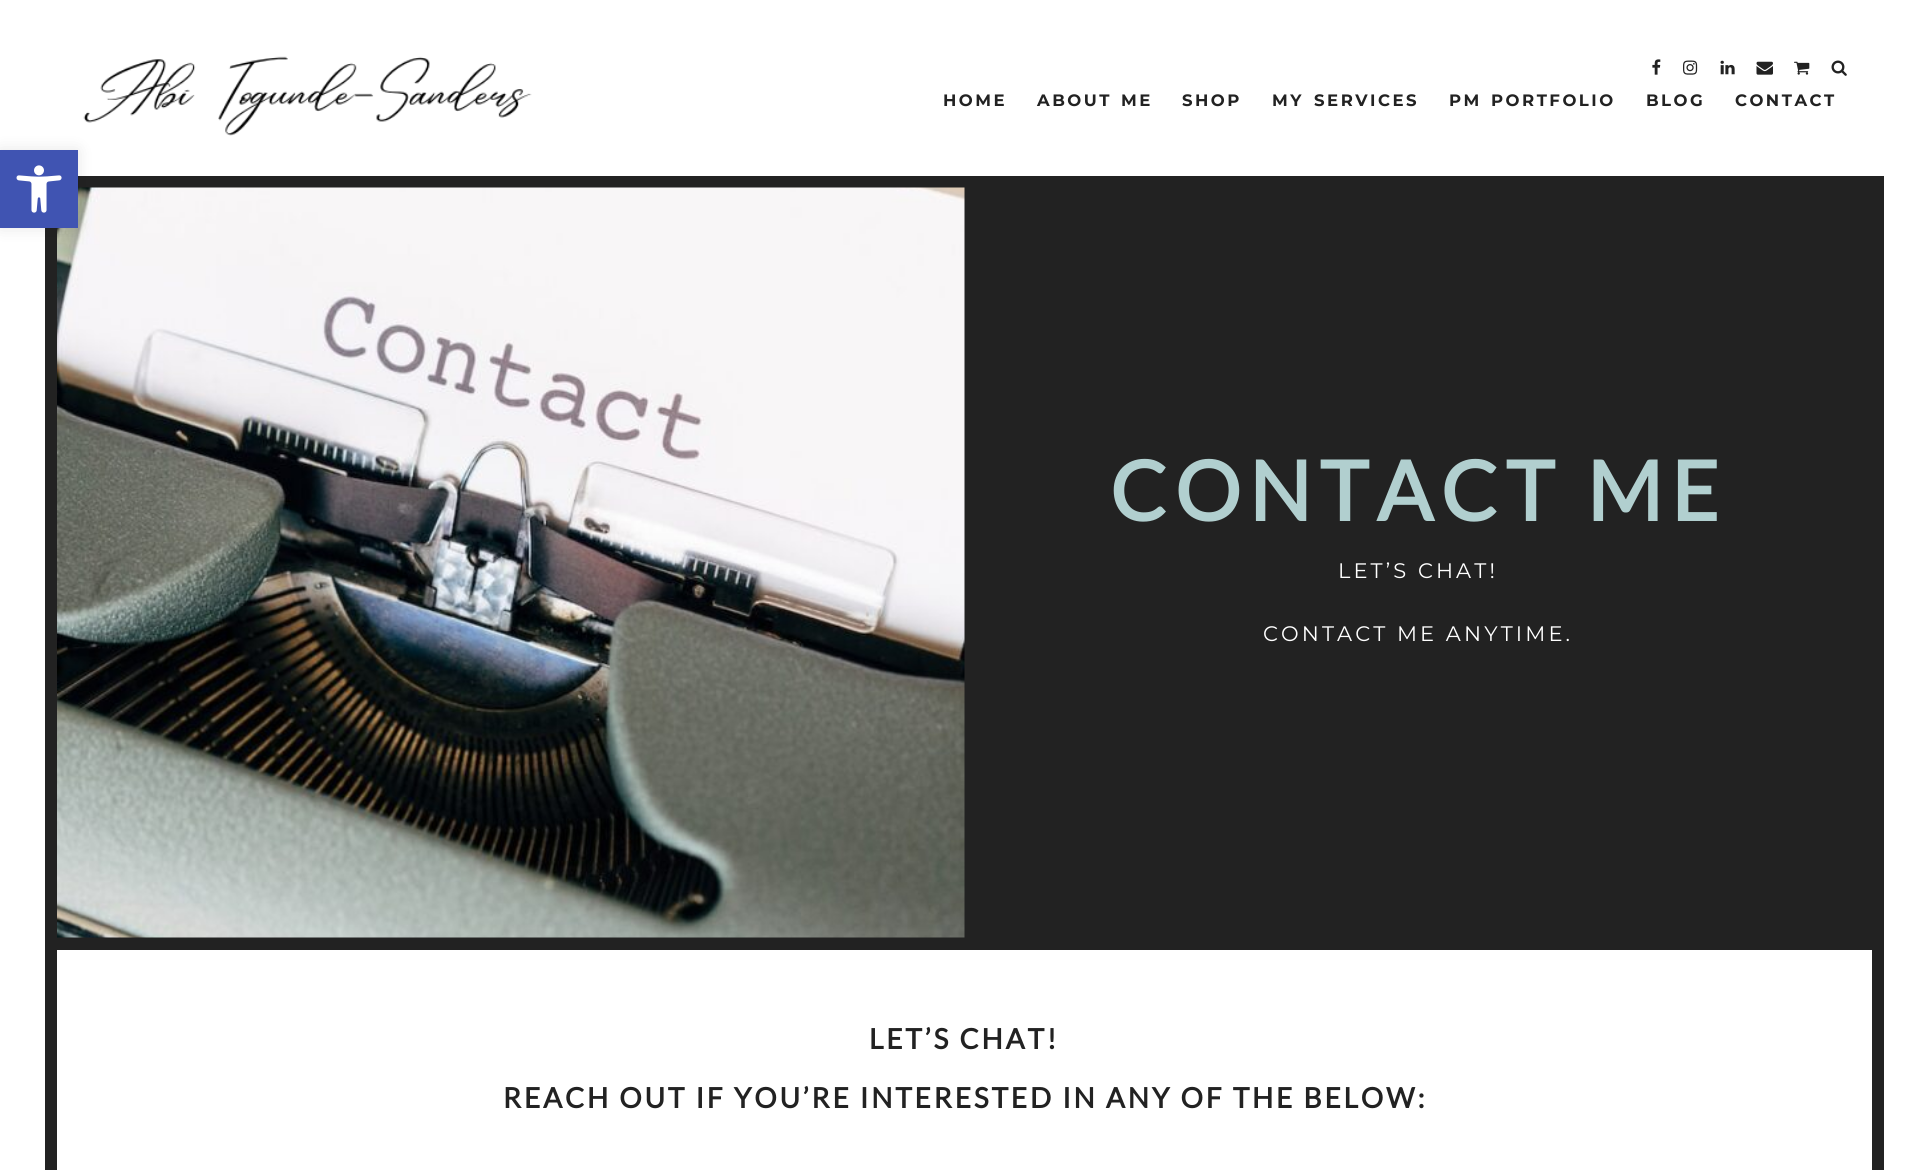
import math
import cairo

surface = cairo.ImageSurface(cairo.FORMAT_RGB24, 1928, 1170)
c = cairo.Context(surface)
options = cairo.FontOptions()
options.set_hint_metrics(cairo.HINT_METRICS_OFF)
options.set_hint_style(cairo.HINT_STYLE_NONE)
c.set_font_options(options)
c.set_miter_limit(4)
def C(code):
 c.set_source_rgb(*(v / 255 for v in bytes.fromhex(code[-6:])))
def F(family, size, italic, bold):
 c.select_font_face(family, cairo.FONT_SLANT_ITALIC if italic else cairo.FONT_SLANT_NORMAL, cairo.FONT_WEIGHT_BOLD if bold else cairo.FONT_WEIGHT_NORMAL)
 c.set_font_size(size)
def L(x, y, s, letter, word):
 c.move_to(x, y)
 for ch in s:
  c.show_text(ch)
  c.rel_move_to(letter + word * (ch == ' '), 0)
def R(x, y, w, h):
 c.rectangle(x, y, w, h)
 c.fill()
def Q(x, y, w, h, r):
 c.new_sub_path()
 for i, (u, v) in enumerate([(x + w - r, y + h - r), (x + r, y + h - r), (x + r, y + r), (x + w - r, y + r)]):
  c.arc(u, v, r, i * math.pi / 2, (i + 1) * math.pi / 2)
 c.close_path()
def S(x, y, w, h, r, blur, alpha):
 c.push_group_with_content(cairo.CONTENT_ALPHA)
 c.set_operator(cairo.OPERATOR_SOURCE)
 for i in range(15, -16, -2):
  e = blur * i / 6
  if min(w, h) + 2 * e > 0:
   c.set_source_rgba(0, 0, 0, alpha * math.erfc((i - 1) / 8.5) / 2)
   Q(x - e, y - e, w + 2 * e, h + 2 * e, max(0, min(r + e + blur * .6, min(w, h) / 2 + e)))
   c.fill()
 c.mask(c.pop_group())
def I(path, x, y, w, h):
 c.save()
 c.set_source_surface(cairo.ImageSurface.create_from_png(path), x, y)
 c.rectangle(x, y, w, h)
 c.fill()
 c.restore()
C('ffffff')
c.paint()
c.rectangle(51,182,1827,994)
C('222222')
c.set_line_width(12)
c.stroke()
R(57,188,1815,762)
I('9.png',57,187,908,751)
C('000000')
S(0,150,78,78,0,7.5,.1)
C('4054b2')
R(0,150,78,78)
I('1.png',16,165,46,48)
I('2.png',83,56,449,80)
I('3.png',1652,59,9,16)
I('4.png',1683,60,15,15)
I('5.png',1720,60,15,15)
I('6.png',1756,61,17,14)
I('7.png',1794,61,16,14)
I('8.png',1831,60,16,16)
F('Montserrat',16.5,0,1)
C('222222')
L(943,106,'HOME',2.5,0)
L(1037,106,'ABOUT ME',2.5,2)
L(1182,106,'SHOP',2.5,0)
L(1272,106,'MY SERVICES',2.5,3)
L(1449,106,'PM PORTFOLIO',2.5,2)
L(1646,106,'BLOG',2.5,0)
L(1735,106,'CONTACT',2.5,0)
F('Lato',82.5,0,1)
C('b1cfcf')
L(1110,521,'CONTACT ME',8.25,0)
F('Montserrat Thin',21,0,0)
C('ffffff')
L(1338,578,'LET’S CHAT!',3.1,0)
L(1263,641,'CONTACT ME ANYTIME.',3.1,0)
F('Lato',28.1,0,1)
C('222222')
L(869,1049,'LET’S CHAT!',2.8,0)
L(503,1108,'REACH OUT IF YOU’RE INTERESTED IN ANY OF THE BELOW:',2.8,0)
surface.write_to_png('o.png')
